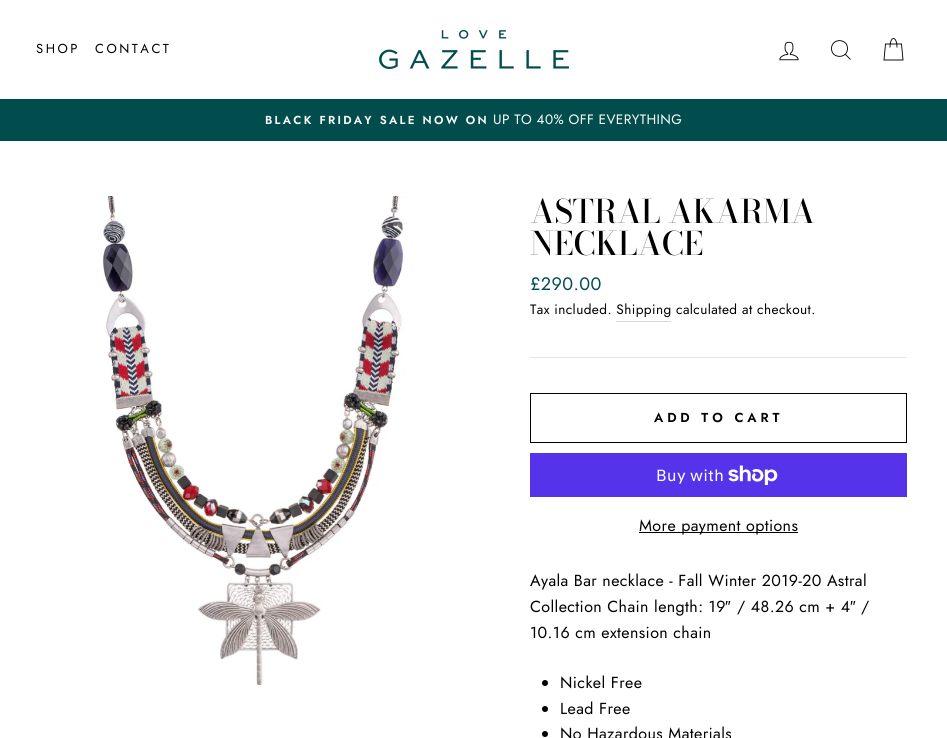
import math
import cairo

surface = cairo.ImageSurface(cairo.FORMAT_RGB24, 947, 738)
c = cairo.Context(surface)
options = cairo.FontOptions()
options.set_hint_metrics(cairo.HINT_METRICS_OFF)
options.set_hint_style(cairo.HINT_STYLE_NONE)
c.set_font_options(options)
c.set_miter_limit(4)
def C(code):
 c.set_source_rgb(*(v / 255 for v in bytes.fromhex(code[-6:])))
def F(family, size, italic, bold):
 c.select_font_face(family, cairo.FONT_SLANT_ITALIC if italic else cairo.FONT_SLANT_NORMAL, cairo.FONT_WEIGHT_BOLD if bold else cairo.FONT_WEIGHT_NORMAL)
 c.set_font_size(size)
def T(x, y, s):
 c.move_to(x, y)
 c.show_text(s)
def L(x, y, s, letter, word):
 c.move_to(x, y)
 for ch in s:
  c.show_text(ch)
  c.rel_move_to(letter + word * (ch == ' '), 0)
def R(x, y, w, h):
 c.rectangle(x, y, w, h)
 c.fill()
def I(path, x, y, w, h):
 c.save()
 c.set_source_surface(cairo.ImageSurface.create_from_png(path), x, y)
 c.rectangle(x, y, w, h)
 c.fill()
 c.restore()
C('ffffff')
c.paint()
F('Jost',13,0,0)
C('000000')
L(36,53,'SHOP',2.5,0)
L(95,53,'CONTACT',2.5,0)
I('1.png',379,30,190,39)
I('2.png',779,41,20,20)
c.new_path()
c.move_to(847.5,48.5)
c.curve_to(847.5,59,831.5,59,831.5,48.5)
c.curve_to(831.5,38,847.5,38,847.5,48.5)
c.close_path()
c.move_to(850.5,59.5)
c.line_to(845.5,54.5)
c.set_line_width(.9)
c.stroke()
c.new_path()
c.move_to(890,47.5)
c.curve_to(890,35.5,897,35.5,897,47.5)
c.move_to(885.5,44)
c.line_to(901.5,44)
c.line_to(903,60)
c.line_to(884,60)
c.close_path()
c.stroke()
C('014d4d')
R(0,99,947,42)
F('Jost SemiBold',11.6,0,0)
C('ffffff')
L(265,124,'BLACK FRIDAY SALE NOW ON',2.3,0)
F('Jost',13.6,0,0)
L(493,124,'UP TO 40% OFF EVERYTHING',.4,0)
I('3.png',103,196,317,490)
F('Bodoni Moda Medium',32.25,0,0)
C('000000')
T(530,223,'ASTRAL AKARMA')
T(530,255,'NECKLACE')
F('Jost',18,0,0)
C('014d4d')
L(530,290,'£290.00',.4,0)
F('Jost',13.6,0,0)
C('000000')
L(530,314,'Tax included. Shipping',.4,0)
L(676,314,'calculated at checkout.',.4,0)
C('d9d9d9')
R(616,321,55,1)
C('e8e8e1')
R(530,357,377,1)
c.rectangle(530.5,393.5,376,49)
C('000000')
c.set_line_width(1)
c.stroke()
F('Jost SemiBold',13,0,0)
L(654,422,'ADD TO CART',3.9,0)
C('5433eb')
R(530,453,377,44)
F('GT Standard',16,0,0)
C('ffffff')
L(656,481,'Buy with',.4,0)
I('4.png',728,465,50,20)
C('000000')
R(639,532,159,1)
F('Jost',16,0,0)
L(639,531,'More payment options',.4,0)
L(530,586,'Ayala Bar necklace - Fall Winter 2019-20 Astral',.4,0)
L(530,612,'Collection Chain length: 19',.4,0)
F('Liberation Sans',16,0,0)
L(725,612,'″',.4,0)
F('Jost',16,0,0)
L(737,612,'/ 48.26 cm + 4',.4,0)
F('Liberation Sans',16,0,0)
L(850,612,'″',.4,0)
F('Jost',16,0,0)
L(861,612,'/',.4,0)
L(530,638,'10.16 cm extension chain',.4,0)
c.new_path()
c.arc(545,683,3,0,2 * math.pi)
c.fill()
L(560,688,'Nickel Free',.4,0)
c.new_path()
c.arc(545,709,3,0,2 * math.pi)
c.fill()
L(560,714,'Lead Free',.4,0)
c.new_path()
c.arc(545,734,3,0,2 * math.pi)
c.fill()
L(560,739,'No Hazardous Materials',.4,0)
surface.write_to_png('o.png')
